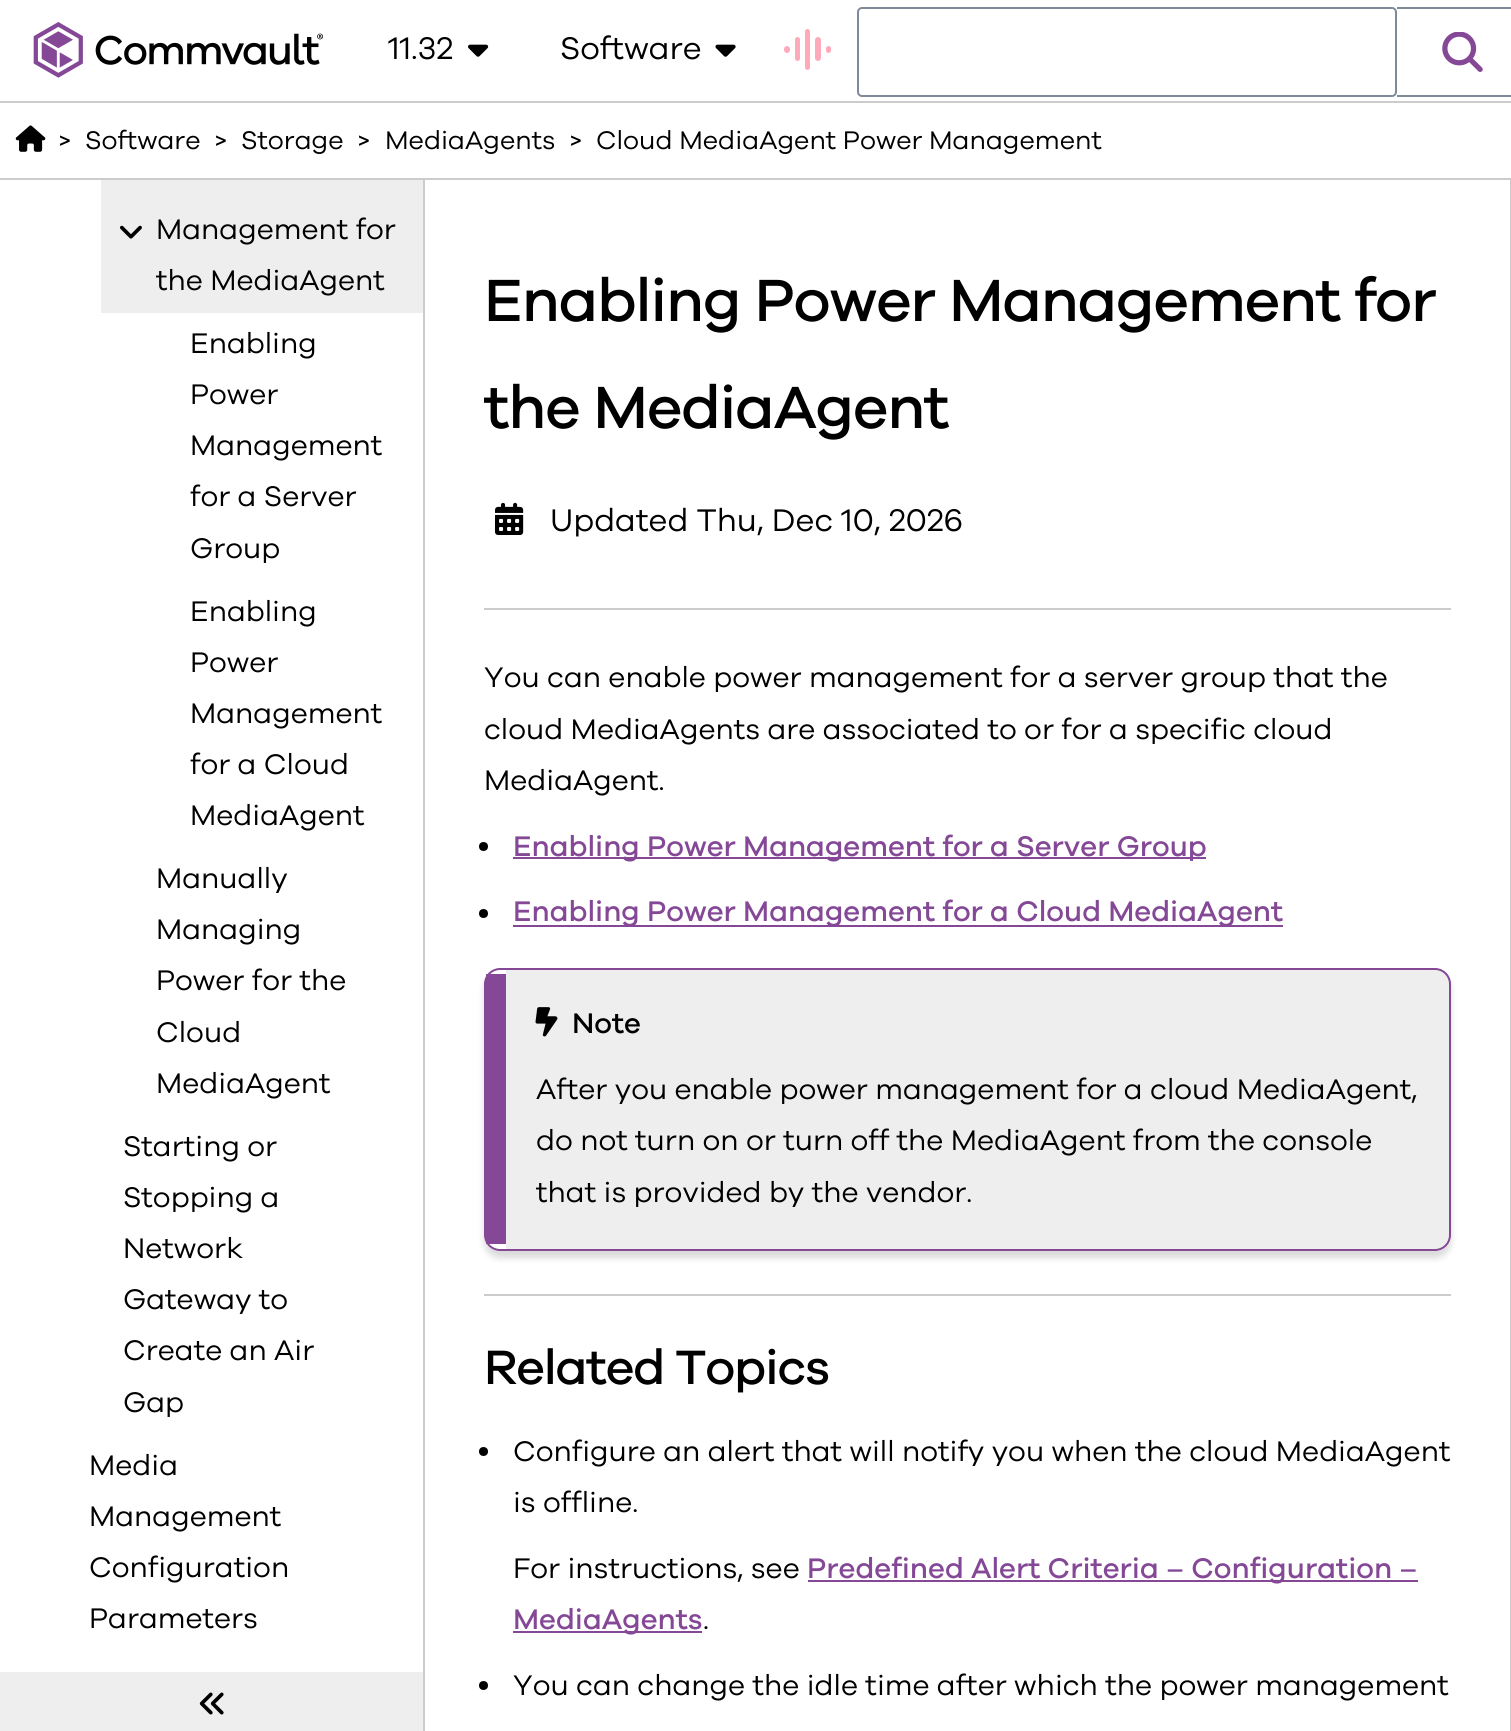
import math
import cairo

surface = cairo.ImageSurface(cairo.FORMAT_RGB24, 1511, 1731)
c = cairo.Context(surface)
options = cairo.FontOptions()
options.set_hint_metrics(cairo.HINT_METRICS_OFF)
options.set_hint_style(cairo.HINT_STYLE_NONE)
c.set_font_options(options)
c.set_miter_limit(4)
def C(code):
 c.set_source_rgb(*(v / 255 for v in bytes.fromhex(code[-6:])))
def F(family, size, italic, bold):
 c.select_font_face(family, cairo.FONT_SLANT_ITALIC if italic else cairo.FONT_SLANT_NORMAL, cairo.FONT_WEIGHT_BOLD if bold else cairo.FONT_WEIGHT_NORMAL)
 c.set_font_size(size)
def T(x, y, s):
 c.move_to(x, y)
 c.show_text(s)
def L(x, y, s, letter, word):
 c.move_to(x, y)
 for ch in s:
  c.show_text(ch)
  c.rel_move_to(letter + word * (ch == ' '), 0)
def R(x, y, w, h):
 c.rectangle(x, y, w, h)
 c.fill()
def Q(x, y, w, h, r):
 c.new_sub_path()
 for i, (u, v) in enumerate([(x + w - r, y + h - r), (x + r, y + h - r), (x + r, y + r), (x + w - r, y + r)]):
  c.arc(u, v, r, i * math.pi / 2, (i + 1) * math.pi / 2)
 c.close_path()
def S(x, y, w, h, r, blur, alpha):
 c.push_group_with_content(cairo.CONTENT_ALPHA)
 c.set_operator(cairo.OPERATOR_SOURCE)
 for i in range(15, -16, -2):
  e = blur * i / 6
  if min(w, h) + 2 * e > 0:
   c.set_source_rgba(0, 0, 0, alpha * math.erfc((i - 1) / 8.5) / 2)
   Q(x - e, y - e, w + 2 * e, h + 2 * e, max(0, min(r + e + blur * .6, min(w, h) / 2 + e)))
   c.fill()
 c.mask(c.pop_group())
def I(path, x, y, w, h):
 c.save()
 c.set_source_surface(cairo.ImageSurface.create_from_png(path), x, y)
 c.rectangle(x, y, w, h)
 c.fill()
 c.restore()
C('ffffff')
c.paint()
C('cccccc')
R(0,101,1511,2)
I('1.png',33,22,290,56)
F('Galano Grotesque',32.25,0,0)
C('000000')
T(388,59,'11.32')
I('2.png',468,44,21,13)
T(560,59,'Software')
I('3.png',715,44,21,13)
C('ffaabb')
Q(784,46,6,7,3)
c.fill()
Q(795,37,5,24,2.5)
c.fill()
Q(805,29,5,41,2.5)
c.fill()
Q(815,37,6,24,3)
c.fill()
Q(826,46,5,7,2.5)
c.fill()
Q(858,8,538,88,4)
C('7e8c9a')
c.stroke()
C('ffffff')
Q(860,9,535,86,5)
c.fill()
C('7e8c9a')
R(1397,7,114,2)
R(1397,95,114,2)
I('4.png',1442,32,41,40)
C('cccccc')
R(1510,180,1,1551)
R(0,178,1511,2)
I('5.png',15,125,31,27)
F('Galano Grotesque',26.3,0,0)
C('000000')
T(59,149,'>')
T(85,149,'Software')
T(215,149,'>')
T(241,149,'Storage')
T(358,149,'>')
T(385,149,'MediaAgents')
T(570,149,'>')
T(596,149,'Cloud MediaAgent Power Management')
F('Galano Grotesque Medium',61.4,0,0)
L(484,321,'Enabling Power Management for',-1.2,0)
L(484,428,'the MediaAgent',-1.2,0)
I('6.png',495,502,29,33)
F('Galano Grotesque',32.25,0,0)
T(550,531,'Updated Thu, Dec 10, 2026')
C('cccccc')
R(484,608,967,2)
F('Galano Grotesque',29.25,0,0)
C('000000')
T(484,687,'You can enable power management for a server group that the')
T(484,739,'cloud MediaAgents are associated to or for a specific cloud')
T(484,790,'MediaAgent.')
c.new_path()
c.arc(483.5,846.5,4.5,0,2 * math.pi)
c.fill()
C('844896')
R(513,857,693,2)
F('Galano Grotesque Medium',29.25,0,0)
T(513,856,'Enabling Power Management for a Server Group')
C('000000')
c.new_path()
c.arc(483.5,913.5,4.5,0,2 * math.pi)
c.fill()
C('844896')
R(513,925,770,2)
T(513,921,'Enabling Power Management for a Cloud MediaAgent')
c.save()
c.set_fill_rule(cairo.FILL_RULE_EVEN_ODD)
c.new_path()
c.move_to(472,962)
c.line_to(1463,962)
c.line_to(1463,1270)
c.line_to(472,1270)
c.close_path()
c.move_to(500,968)
c.line_to(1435,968)
c.curve_to(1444,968,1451,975,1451,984)
c.line_to(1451,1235)
c.curve_to(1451,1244,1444,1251,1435,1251)
c.line_to(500,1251)
c.curve_to(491,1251,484,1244,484,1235)
c.line_to(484,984)
c.curve_to(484,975,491,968,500,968)
c.close_path()
c.clip()
C('000000')
S(484,974,967,284,16,3.5,.15)
c.restore()
C('eeeeee')
c.new_path()
c.move_to(506,970)
c.line_to(1437,970)
c.curve_to(1443,970,1449,975,1449,982)
c.line_to(1449,1236)
c.curve_to(1449,1243,1443,1249,1437,1249)
c.line_to(506,1249)
c.close_path()
c.fill()
Q(485,969,965,281,15)
C('844896')
c.stroke()
R(486,974,20,270)
I('7.png',535,1007,23,30)
C('000000')
T(572,1033,'Note')
F('Galano Grotesque',29.25,0,0)
T(536,1099,'After you enable power management for a cloud MediaAgent,')
T(536,1150,'do not turn on or turn off the MediaAgent from the console')
T(536,1202,'that is provided by the vendor.')
C('cccccc')
R(484,1294,967,2)
F('Galano Grotesque Medium',49.75,0,0)
C('000000')
L(484,1384,'Related Topics',-1.2,0)
c.new_path()
c.arc(483.5,1451.5,4.5,0,2 * math.pi)
c.fill()
F('Galano Grotesque',29.25,0,0)
T(513,1461,'Configure an alert that will notify you when the cloud MediaAgent')
T(513,1512,'is offline.')
T(513,1578,'For instructions, see')
C('844896')
R(808,1580,610,2)
F('Galano Grotesque Medium',29.25,0,0)
T(807,1578,'Predefined Alert Criteria – Configuration –')
R(513,1631,189,2)
T(513,1629,'MediaAgents')
F('Galano Grotesque',29.25,0,0)
C('000000')
T(703,1629,'.')
c.new_path()
c.arc(483.5,1685.5,4.5,0,2 * math.pi)
c.fill()
T(513,1695,'You can change the idle time after which the power management')
C('eeeeee')
R(101,180,322,133)
I('8.png',120,225,22,14)
C('000000')
T(156,239,'Management for')
T(156,290,'the MediaAgent')
T(190,353,'Enabling')
T(190,404,'Power')
T(190,455,'Management')
T(190,506,'for a Server')
T(190,558,'Group')
T(190,621,'Enabling')
T(190,672,'Power')
T(190,723,'Management')
T(190,774,'for a Cloud')
T(190,825,'MediaAgent')
T(156,888,'Manually')
T(156,939,'Managing')
T(156,990,'Power for the')
T(156,1042,'Cloud')
T(156,1093,'MediaAgent')
T(123,1156,'Starting or')
T(123,1207,'Stopping a')
T(123,1258,'Network')
T(123,1309,'Gateway to')
T(123,1360,'Create an Air')
T(123,1412,'Gap')
T(89,1475,'Media')
T(89,1526,'Management')
T(89,1577,'Configuration')
T(89,1628,'Parameters')
C('eeeeee')
R(0,1672,423,59)
I('9.png',199,1692,25,23)
C('cccccc')
R(423,180,2,1551)
surface.write_to_png('o.png')
